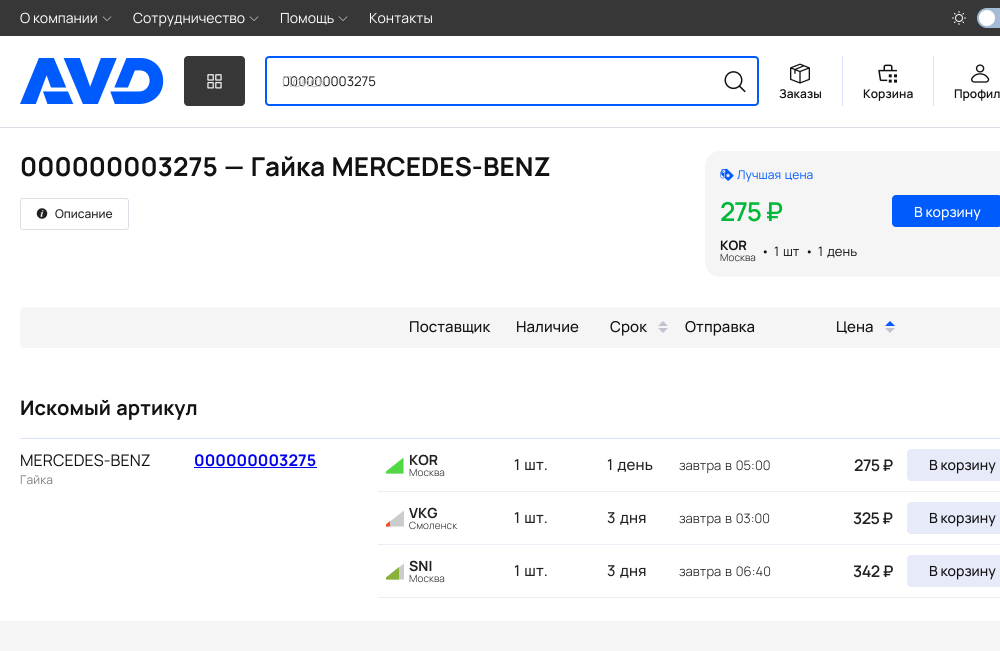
import math
import cairo

surface = cairo.ImageSurface(cairo.FORMAT_RGB24, 1000, 651)
c = cairo.Context(surface)
options = cairo.FontOptions()
options.set_hint_metrics(cairo.HINT_METRICS_OFF)
options.set_hint_style(cairo.HINT_STYLE_NONE)
c.set_font_options(options)
c.set_miter_limit(4)
def C(code):
 c.set_source_rgb(*(v / 255 for v in bytes.fromhex(code[-6:])))
def F(family, size, italic, bold):
 c.select_font_face(family, cairo.FONT_SLANT_ITALIC if italic else cairo.FONT_SLANT_NORMAL, cairo.FONT_WEIGHT_BOLD if bold else cairo.FONT_WEIGHT_NORMAL)
 c.set_font_size(size)
def T(x, y, s):
 c.move_to(x, y)
 c.show_text(s)
def L(x, y, s, letter, word):
 c.move_to(x, y)
 for ch in s:
  c.show_text(ch)
  c.rel_move_to(letter + word * (ch == ' '), 0)
def R(x, y, w, h):
 c.rectangle(x, y, w, h)
 c.fill()
def Q(x, y, w, h, r):
 c.new_sub_path()
 for i, (u, v) in enumerate([(x + w - r, y + h - r), (x + r, y + h - r), (x + r, y + r), (x + w - r, y + r)]):
  c.arc(u, v, r, i * math.pi / 2, (i + 1) * math.pi / 2)
 c.close_path()
def I(path, x, y, w, h):
 c.save()
 c.set_source_surface(cairo.ImageSurface.create_from_png(path), x, y)
 c.rectangle(x, y, w, h)
 c.fill()
 c.restore()
C('ffffff')
c.paint()
C('373737')
R(0,0,1000,36)
F('Manrope',14,0,0)
C('ffffff')
T(20,23,'О компании')
I('1.png',102,16,10,5)
T(133,23,'Сотрудничество')
I('1.png',249,16,10,5)
T(280,23,'Помощь')
I('1.png',338,16,10,5)
L(369,23,'Контакты',.1,0)
I('2.png',952,11,14,14)
C('a4bcd6')
Q(977.5,8.5,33,19,9.5)
c.fill_preserve()
c.set_line_width(1)
c.stroke()
C('ffffff')
c.arc(987,18,8,0,2 * math.pi)
c.fill()
C('dcdfe6')
R(0,127,1000,1)
I('3.png',20,58,144,46)
C('373737')
Q(184.5,56.5,60,49,3.5)
c.fill_preserve()
c.stroke()
I('4.png',207,74,15,15)
Q(266,57,492,48,3)
C('005bff')
c.set_line_width(2)
c.stroke()
F('Manrope',13.25,0,0)
C('121212')
T(282,86,'000000003275')
I('5.png',724,71,22,22)
F('Manrope',15,0,0)
C('c0c0c0')
L(282,87,'Поиск',.1,0)
C('dbe2ff')
R(842,56,1,50)
I('6.png',790,63,20,21)
F('Manrope SemiBold',12,0,0)
C('121212')
L(779,98,'Заказы',.1,0)
C('dbe2ff')
R(933,56,1,50)
I('7.png',878,64,19,19)
C('121212')
L(863,98,'Корзина',.1,0)
I('8.png',970,64,20,19)
T(954,98,'Профил')
F('Manrope',26,0,1)
L(20,176,'000000003275 — Гайка MERCEDES-BENZ',.1,1)
Q(20.5,198.5,108,31,2.5)
C('dcdfe6')
c.set_line_width(1)
c.stroke()
I('9.png',36,208,12,11)
F('Manrope Medium',12,0,0)
C('212123')
T(55,218,'Описание')
C('f5f5f5')
Q(705,151,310,126,15)
c.fill()
I('10.png',720,168,14,13)
F('Manrope',12,0,0)
C('005bff')
L(737,179,'Лучшая цена',.1,1)
F('Manrope SemiBold',26,0,0)
C('00b73a')
L(720,221,'275 ₽',-1,0)
C('005bff')
Q(892,195,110,32,4)
c.fill()
F('Manrope Medium',14,0,0)
C('ffffff')
T(914,217,'В корзину')
F('Manrope',13,0,1)
C('121212')
L(720,250,'KOR',.1,0)
F('Manrope Light',10,0,0)
L(720,261,'Москва',.1,0)
F('Manrope',13,0,0)
L(761,256,'•',.1,0)
L(774,256,'1 шт',.1,1)
L(805,256,'•',.1,0)
L(818,256,'1 день',.1,1)
C('f5f5f5')
Q(20,307,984,41,4)
c.fill()
F('Manrope Medium',15,0,0)
C('121212')
L(409,332,'Поставщик',.1,0)
L(516,332,'Наличие',.1,0)
L(610,332,'Срок',.1,0)
C('c0c4cc')
c.new_path()
c.move_to(668,326)
c.line_to(658,326)
c.line_to(663,321)
c.close_path()
c.move_to(658,328)
c.line_to(668,328)
c.line_to(663,333)
c.close_path()
c.fill()
C('121212')
L(685,332,'Отправка',.1,0)
L(836,332,'Цена',.1,0)
C('005bff')
c.new_path()
c.move_to(895,326)
c.line_to(885,326)
c.line_to(890,321)
c.close_path()
c.fill()
C('c0c4cc')
c.new_path()
c.move_to(885,328)
c.line_to(895,328)
c.line_to(890,333)
c.close_path()
c.fill()
F('Manrope',20,0,1)
C('121212')
L(20,415,'Искомый артикул',.1,1)
C('dbe2ff')
R(20,438,980,1)
F('Manrope',16,0,0)
C('121212')
L(20,466,'MERCEDES-BENZ',.1,0)
F('Manrope',16,0,1)
C('0000ee')
L(194,466,'000000003275',.1,0)
R(194,467,123,1)
F('Manrope',12,0,0)
C('808080')
L(20,484,'Гайка',.1,0)
C('cccccc')
c.new_path()
c.move_to(386,473.5)
c.line_to(386,471.5)
c.line_to(404,457.5)
c.line_to(404,473.5)
c.close_path()
c.fill()
C('51d843')
c.new_path()
c.move_to(386,473.5)
c.line_to(386,471.5)
c.line_to(403,458)
c.line_to(403,473.5)
c.close_path()
c.fill()
F('Manrope',14,0,1)
C('212123')
L(409,465,'KOR',.1,0)
F('Manrope Light',10,0,0)
L(409,476,'Москва',.1,0)
F('Manrope Medium',15,0,0)
L(514,470,'1 шт.',.1,1)
L(607,470,'1 день',.1,1)
F('Manrope Light',13,0,0)
C('121212')
L(679,470,'завтра в 05:00',.1,1)
F('Manrope SemiBold',16,0,0)
C('212123')
L(854,471,'275 ₽',-.5,0)
C('ebeef5')
R(378,491,622,1)
C('e7eaf9')
Q(907,449,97,32,4)
c.fill()
F('Manrope Medium',14,0,0)
C('121212')
T(929,470,'В корзину')
C('cccccc')
c.new_path()
c.move_to(386,526.5)
c.line_to(386,524.5)
c.line_to(404,510.5)
c.line_to(404,526.5)
c.close_path()
c.fill()
C('ff481f')
c.new_path()
c.move_to(386,526.5)
c.line_to(386,524.5)
c.line_to(390,521)
c.line_to(390,526.5)
c.close_path()
c.fill()
F('Manrope',14,0,1)
C('212123')
L(409,518,'VKG',.1,0)
F('Manrope Light',10,0,0)
L(409,529,'Смоленск',.1,0)
F('Manrope Medium',15,0,0)
L(514,523,'1 шт.',.1,1)
L(607,523,'3 дня',.1,1)
F('Manrope Light',13,0,0)
C('121212')
L(679,523,'завтра в 03:00',.1,1)
F('Manrope SemiBold',16,0,0)
C('212123')
L(853,524,'325 ₽',-.5,0)
C('ebeef5')
R(378,544,622,1)
C('e7eaf9')
Q(907,502,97,32,4)
c.fill()
F('Manrope Medium',14,0,0)
C('121212')
T(929,523,'В корзину')
C('cccccc')
c.new_path()
c.move_to(386,579.5)
c.line_to(386,577.5)
c.line_to(404,563.5)
c.line_to(404,579.5)
c.close_path()
c.fill()
C('8ab239')
c.new_path()
c.move_to(386,579.5)
c.line_to(386,577.5)
c.line_to(399,567)
c.line_to(399,579.5)
c.close_path()
c.fill()
F('Manrope',14,0,1)
C('212123')
L(409,571,'SNI',.1,0)
F('Manrope Light',10,0,0)
L(409,582,'Москва',.1,0)
F('Manrope Medium',15,0,0)
L(514,576,'1 шт.',.1,1)
L(607,576,'3 дня',.1,1)
F('Manrope Light',13,0,0)
C('121212')
L(679,576,'завтра в 06:40',.1,1)
F('Manrope SemiBold',16,0,0)
C('212123')
L(853,577,'342 ₽',-.5,0)
C('ebeef5')
R(378,597,622,1)
C('e7eaf9')
Q(907,555,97,32,4)
c.fill()
F('Manrope Medium',14,0,0)
C('121212')
T(929,576,'В корзину')
C('f5f5f5')
R(0,621,1000,30)
surface.write_to_png('o.png')
